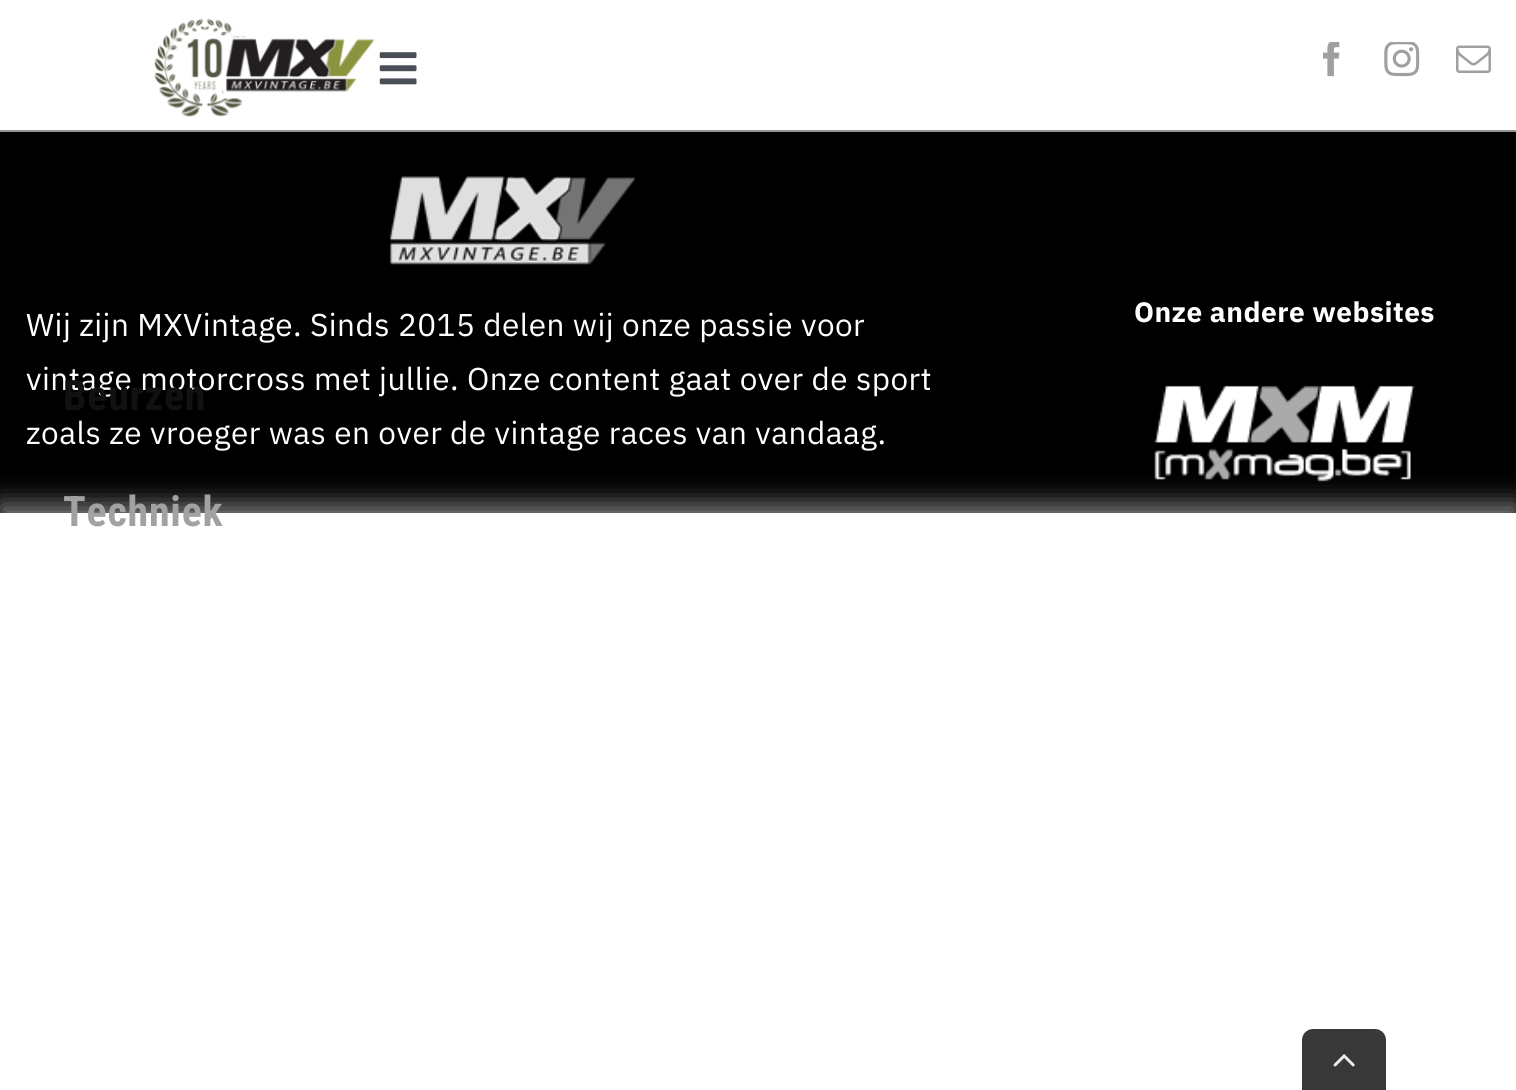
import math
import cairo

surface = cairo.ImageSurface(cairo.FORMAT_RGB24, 1516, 1090)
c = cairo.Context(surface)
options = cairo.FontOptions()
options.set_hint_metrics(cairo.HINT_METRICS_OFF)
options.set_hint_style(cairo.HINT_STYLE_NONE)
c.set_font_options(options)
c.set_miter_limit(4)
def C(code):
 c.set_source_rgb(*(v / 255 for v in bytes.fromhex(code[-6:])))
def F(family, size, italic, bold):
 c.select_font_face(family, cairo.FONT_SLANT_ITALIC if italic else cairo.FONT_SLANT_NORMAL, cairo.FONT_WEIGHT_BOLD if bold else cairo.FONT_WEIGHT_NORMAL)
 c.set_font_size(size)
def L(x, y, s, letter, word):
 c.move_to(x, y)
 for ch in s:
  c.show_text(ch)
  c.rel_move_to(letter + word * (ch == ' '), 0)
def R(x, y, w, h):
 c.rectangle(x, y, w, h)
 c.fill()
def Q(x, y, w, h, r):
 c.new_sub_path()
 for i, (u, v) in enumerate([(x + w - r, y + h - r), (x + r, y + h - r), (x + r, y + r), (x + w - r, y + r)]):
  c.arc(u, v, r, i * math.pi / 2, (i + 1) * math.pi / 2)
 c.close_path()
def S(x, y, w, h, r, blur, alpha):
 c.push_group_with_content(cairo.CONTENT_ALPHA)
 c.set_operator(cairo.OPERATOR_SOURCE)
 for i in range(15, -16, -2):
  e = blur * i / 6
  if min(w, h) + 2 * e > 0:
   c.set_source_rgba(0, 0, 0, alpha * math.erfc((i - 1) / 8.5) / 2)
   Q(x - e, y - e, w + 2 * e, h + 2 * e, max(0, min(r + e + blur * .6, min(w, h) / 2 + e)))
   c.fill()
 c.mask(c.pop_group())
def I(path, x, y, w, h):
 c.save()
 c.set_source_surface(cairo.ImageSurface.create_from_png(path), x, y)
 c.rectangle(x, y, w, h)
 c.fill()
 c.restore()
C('000000')
c.paint()
I('1.png',390,176,245,89)
F('IBM Plex Sans',31.5,0,0)
C('ffffff')
L(26,336,'Wij zijn MXVintage. Sinds 2015 delen wij onze passie voor',.47,0)
L(26,390,'vintage motorcross met jullie. Onze content gaat over de sport',.47,0)
L(26,444,'zoals ze vroeger was en over de vintage races van vandaag.',.47,0)
F('IBM Plex Sans',28,0,1)
L(1134,322,'Onze andere websites',.47,0)
I('2.png',1154,385,261,97)
R(0,0,1516,130)
C('939393')
R(0,130,1516,2)
I('3.png',154,18,221,99)
I('4.png',1323,42,17,35)
I('5.png',1384,42,36,35)
I('6.png',1456,45,35,28)
I('7.png',379,52,38,33)
F('Roboto Condensed',42,0,1)
C('111111')
L(63,410,'Beurzen',.75,0)
C('808080')
S(0,504,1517,578,0,13,1)
C('ffffff')
R(0,513,1516,577)
C('a2a2a2')
L(63,526,'Techniek',.75,0)
C('383838')
c.new_path()
c.move_to(1313,1029)
c.line_to(1375,1029)
c.curve_to(1381,1029,1386,1034,1386,1040)
c.line_to(1386,1090)
c.line_to(1302,1090)
c.line_to(1302,1040)
c.curve_to(1302,1034,1307,1029,1313,1029)
c.close_path()
c.fill()
I('8.png',1333,1054,22,13)
surface.write_to_png('o.png')
